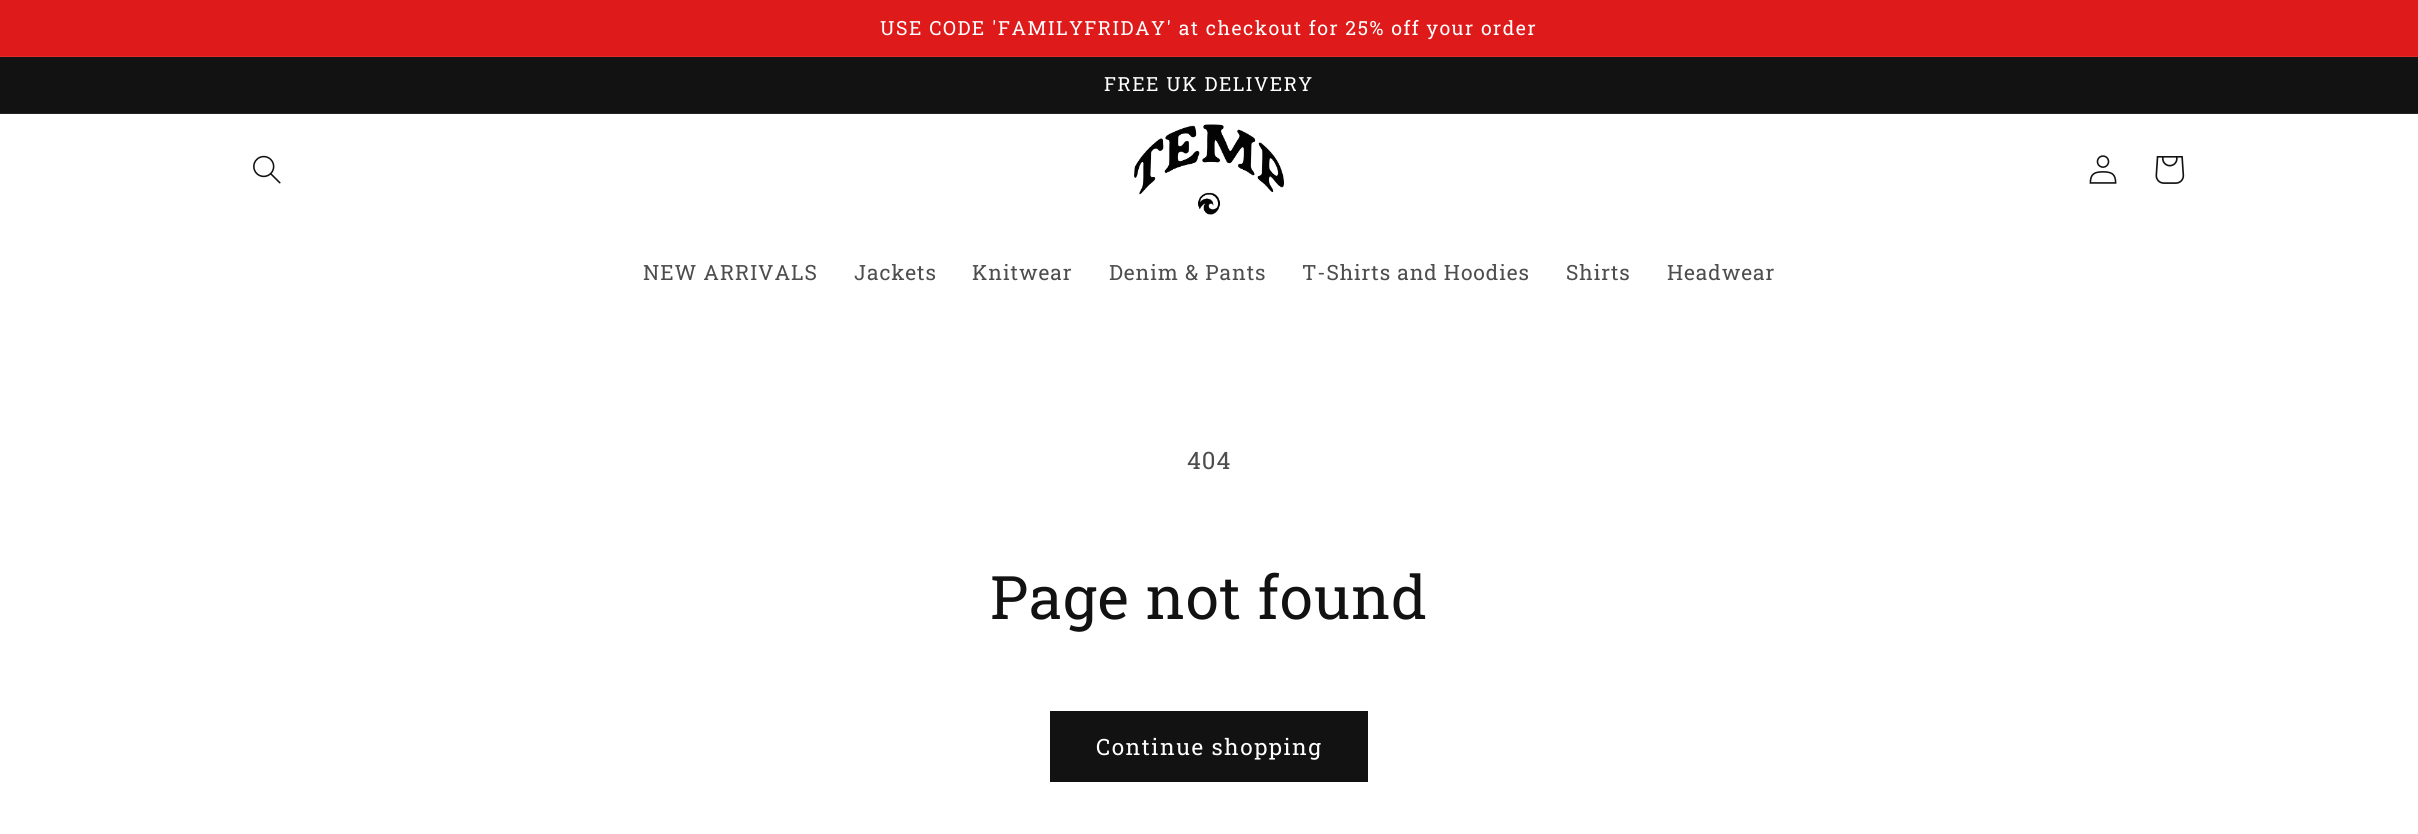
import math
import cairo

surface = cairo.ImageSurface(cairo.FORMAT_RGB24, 2418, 834)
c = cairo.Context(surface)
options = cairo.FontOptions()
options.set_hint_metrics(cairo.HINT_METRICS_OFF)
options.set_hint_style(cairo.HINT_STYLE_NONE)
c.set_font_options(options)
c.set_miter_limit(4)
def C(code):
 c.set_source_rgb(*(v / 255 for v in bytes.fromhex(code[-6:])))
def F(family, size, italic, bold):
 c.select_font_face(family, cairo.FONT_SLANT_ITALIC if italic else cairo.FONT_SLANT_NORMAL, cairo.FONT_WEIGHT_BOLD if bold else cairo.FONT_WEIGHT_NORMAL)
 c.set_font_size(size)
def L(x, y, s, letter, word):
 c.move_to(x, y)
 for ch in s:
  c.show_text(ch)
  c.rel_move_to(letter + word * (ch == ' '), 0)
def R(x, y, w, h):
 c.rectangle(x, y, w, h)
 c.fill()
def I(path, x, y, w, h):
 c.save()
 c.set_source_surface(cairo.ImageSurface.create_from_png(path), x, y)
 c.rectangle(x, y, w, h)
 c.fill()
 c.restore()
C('ffffff')
c.paint()
C('df1a1a')
R(0,0,2418,56)
C('e22c2c')
R(0,56,2418,1)
F('Roboto Slab',19.5,0,0)
C('ffffff')
L(880,35,'USE CODE \'FAMILYFRIDAY\' at checkout for 25% off your order',1.5,0)
C('121212')
R(0,57,2418,56)
C('252525')
R(0,113,2418,1)
C('ffffff')
L(1104,91,'FREE UK DELIVERY',1.5,0)
I('1.png',253,155,28,29)
I('2.png',1134,124,150,91)
I('3.png',2089,155,28,29)
I('4.png',2155,156,30,28)
F('Roboto Slab',21,0,0)
C('4d4d4d')
L(643,280,'NEW ARRIVALS',.9,0)
L(854,280,'Jackets',.9,0)
L(972,280,'Knitwear',.9,0)
L(1109,280,'Denim & Pants',.9,0)
L(1302,280,'T-Shirts and Hoodies',.9,0)
L(1566,280,'Shirts',.9,0)
L(1667,280,'Headwear',.9,0)
F('Roboto Slab',24,0,0)
L(1187,469,'404',.9,0)
F('Roboto Slab',60,0,0)
C('121212')
L(990,619,'Page not found',.9,0)
R(1050,711,318,71)
F('Roboto Slab',22.5,0,0)
C('ffffff')
L(1096,755,'Continue shopping',1.5,0)
surface.write_to_png('o.png')
